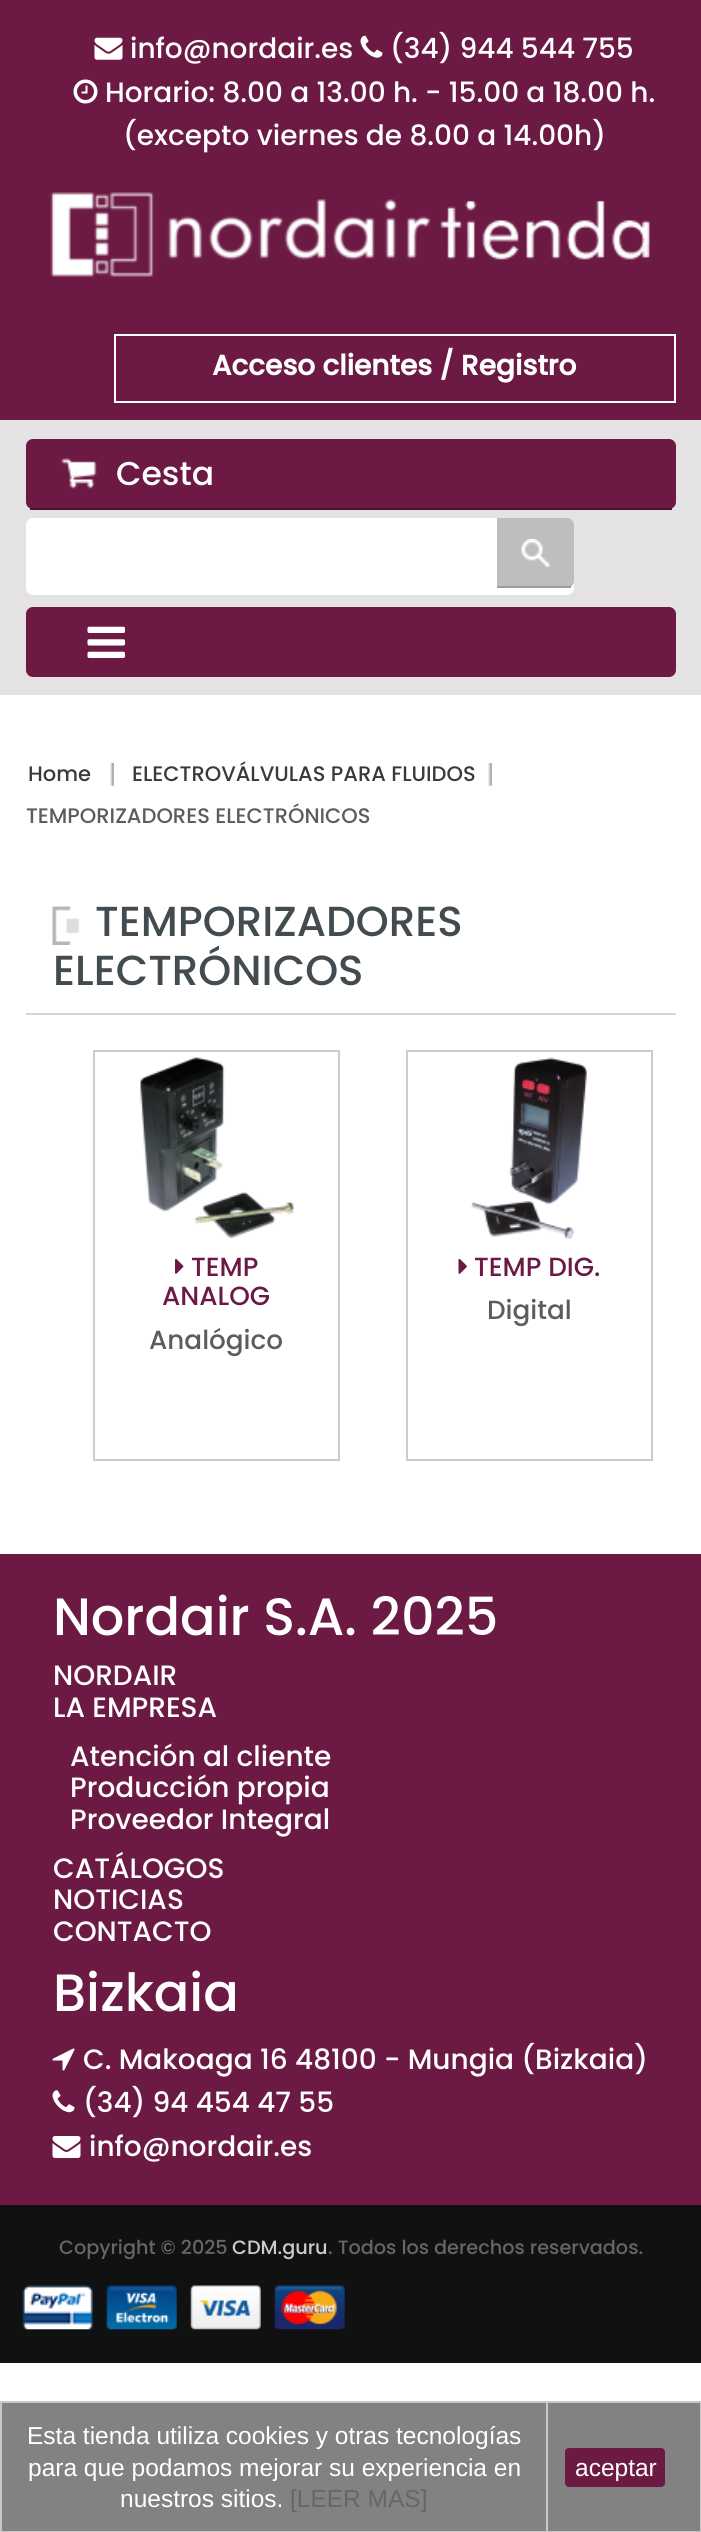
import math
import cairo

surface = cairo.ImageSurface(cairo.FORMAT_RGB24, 701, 2532)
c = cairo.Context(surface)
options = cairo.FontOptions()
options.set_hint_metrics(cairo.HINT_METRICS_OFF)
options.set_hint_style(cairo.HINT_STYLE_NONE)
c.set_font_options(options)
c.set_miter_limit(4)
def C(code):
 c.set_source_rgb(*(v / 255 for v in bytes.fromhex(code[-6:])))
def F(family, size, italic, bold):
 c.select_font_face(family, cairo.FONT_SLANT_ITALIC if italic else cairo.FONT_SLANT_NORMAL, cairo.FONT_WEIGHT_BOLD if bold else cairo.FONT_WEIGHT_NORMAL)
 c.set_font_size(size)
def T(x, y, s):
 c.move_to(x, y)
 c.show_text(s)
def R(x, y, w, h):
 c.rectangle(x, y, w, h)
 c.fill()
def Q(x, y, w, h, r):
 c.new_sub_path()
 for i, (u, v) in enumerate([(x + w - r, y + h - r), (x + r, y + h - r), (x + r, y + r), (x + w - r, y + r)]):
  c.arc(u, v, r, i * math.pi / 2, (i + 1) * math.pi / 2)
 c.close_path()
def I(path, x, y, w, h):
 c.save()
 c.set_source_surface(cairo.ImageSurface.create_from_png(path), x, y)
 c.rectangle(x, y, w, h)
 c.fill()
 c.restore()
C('ffffff')
c.paint()
C('6c1a44')
R(0,0,701,420)
I('1.png',94,37,29,23)
F('Poppins Medium',28,0,0)
C('ffffff')
T(130,58,'info@nordair.es')
I('2.png',360,35,23,23)
T(390,58,'(34) 944 544 755')
I('3.png',73,79,25,25)
T(105,102,'Horario: 8.00 a 13.00 h. - 15.00 a 18.00 h.')
T(123,145,'(excepto viernes de 8.00 a 14.00h)')
I('4.png',50,192,600,85)
c.rectangle(115,335,560,67)
c.stroke()
F('Poppins',28,0,1)
T(212,375,'Acceso clientes / Registro')
C('e4e2e2')
R(0,420,701,275)
C('6c1a44')
Q(26,439,650,70,7)
c.fill()
I('5.png',61,458,36,31)
C('4b1330')
R(30,508,642,2)
F('Poppins Medium',33,0,0)
C('ffffff')
T(116,485,'Cesta')
Q(26,518,548,77,7)
c.fill()
C('bfbdbd')
c.new_path()
c.move_to(497,518)
c.line_to(567,518)
c.curve_to(571,518,574,521,574,525)
c.line_to(574,581)
c.curve_to(574,585,571,588,567,588)
c.line_to(497,588)
c.close_path()
c.fill()
I('6.png',521,539,29,28)
C('9d9c9c')
R(497,586,74,2)
C('6c1a44')
Q(26,607,650,70,7)
c.fill()
I('7.png',87,626,38,32)
F('Poppins Medium',21,0,0)
C('3a3a38')
T(28,781,'Home')
I('8.png',110,763,4,23)
T(132,781,'ELECTROVÁLVULAS PARA FLUIDOS')
I('8.png',488,763,4,23)
C('5e5b5b')
T(26,823,'TEMPORIZADORES ELECTRÓNICOS')
I('9.png',52,906,28,39)
F('Poppins Medium',42,0,0)
C('424b50')
T(95,936,'TEMPORIZADORES')
T(53,985,'ELECTRÓNICOS')
C('d6d4d4')
R(26,1013,650,2)
c.rectangle(94,1051,245,409)
C('cccccc')
c.stroke()
I('10.png',140,1057,155,182)
I('11.png',175,1258,9,16)
F('Poppins Medium',26.25,0,0)
C('6c1a44')
T(191,1276,'TEMP')
T(162,1305,'ANALOG')
C('5e5b5b')
T(149,1349,'Analógico')
c.rectangle(407,1051,245,409)
C('cccccc')
c.stroke()
I('12.png',470,1057,117,183)
I('13.png',458,1258,9,16)
C('6c1a44')
T(474,1276,'TEMP DIG.')
C('5e5b5b')
T(487,1319,'Digital')
C('6c1a44')
R(0,1554,701,651)
F('Poppins Medium',52.5,0,0)
C('ffffff')
T(53,1635,'Nordair S.A. 2025')
F('Poppins Medium',28,0,0)
T(53,1685,'NORDAIR')
T(53,1717,'LA EMPRESA')
T(70,1766,'Atención al cliente')
T(70,1797,'Producción propia')
T(70,1829,'Proveedor Integral')
T(53,1878,'CATÁLOGOS')
T(53,1909,'NOTICIAS')
T(53,1941,'CONTACTO')
F('Poppins Medium',52.5,0,0)
T(53,2011,'Bizkaia')
I('14.png',52,2048,23,23)
F('Poppins Medium',28,0,0)
T(83,2069,'C. Makoaga 16 48100 - Mungia (Bizkaia)')
I('15.png',52,2090,23,23)
T(83,2112,'(34) 94 454 47 55')
I('16.png',52,2136,29,22)
T(89,2156,'info@nordair.es')
C('111111')
R(0,2205,701,158)
F('Poppins Medium',19.25,0,0)
C('666666')
T(59,2254,'Copyright © 2025')
C('cccccc')
T(232,2254,'CDM.guru')
C('666666')
T(328,2254,'. Todos los derechos reservados.')
I('17.png',22,2285,71,45)
I('18.png',106,2285,71,45)
I('19.png',190,2285,71,45)
I('20.png',274,2285,71,45)
C('828282')
R(2,2403,698,128)
C('c9c6c6')
R(546,2401,155,2)
R(700,2401,1,131)
R(546,2531,155,1)
R(546,2401,2,131)
R(0,2401,548,2)
R(0,2531,548,1)
R(0,2401,2,131)
F('Liberation Sans',24.5,0,0)
C('ffffff')
T(27,2444,'Esta tienda utiliza cookies y otras tecnologías')
T(28,2476,'para que podamos mejorar su experiencia en')
T(120,2507,'nuestros sitios.')
C('666666')
T(290,2507,'[LEER MAS]')
C('6c1a44')
Q(565,2448,100,39,4)
c.fill()
C('ffffff')
T(575,2476,'aceptar')
surface.write_to_png('o.png')
